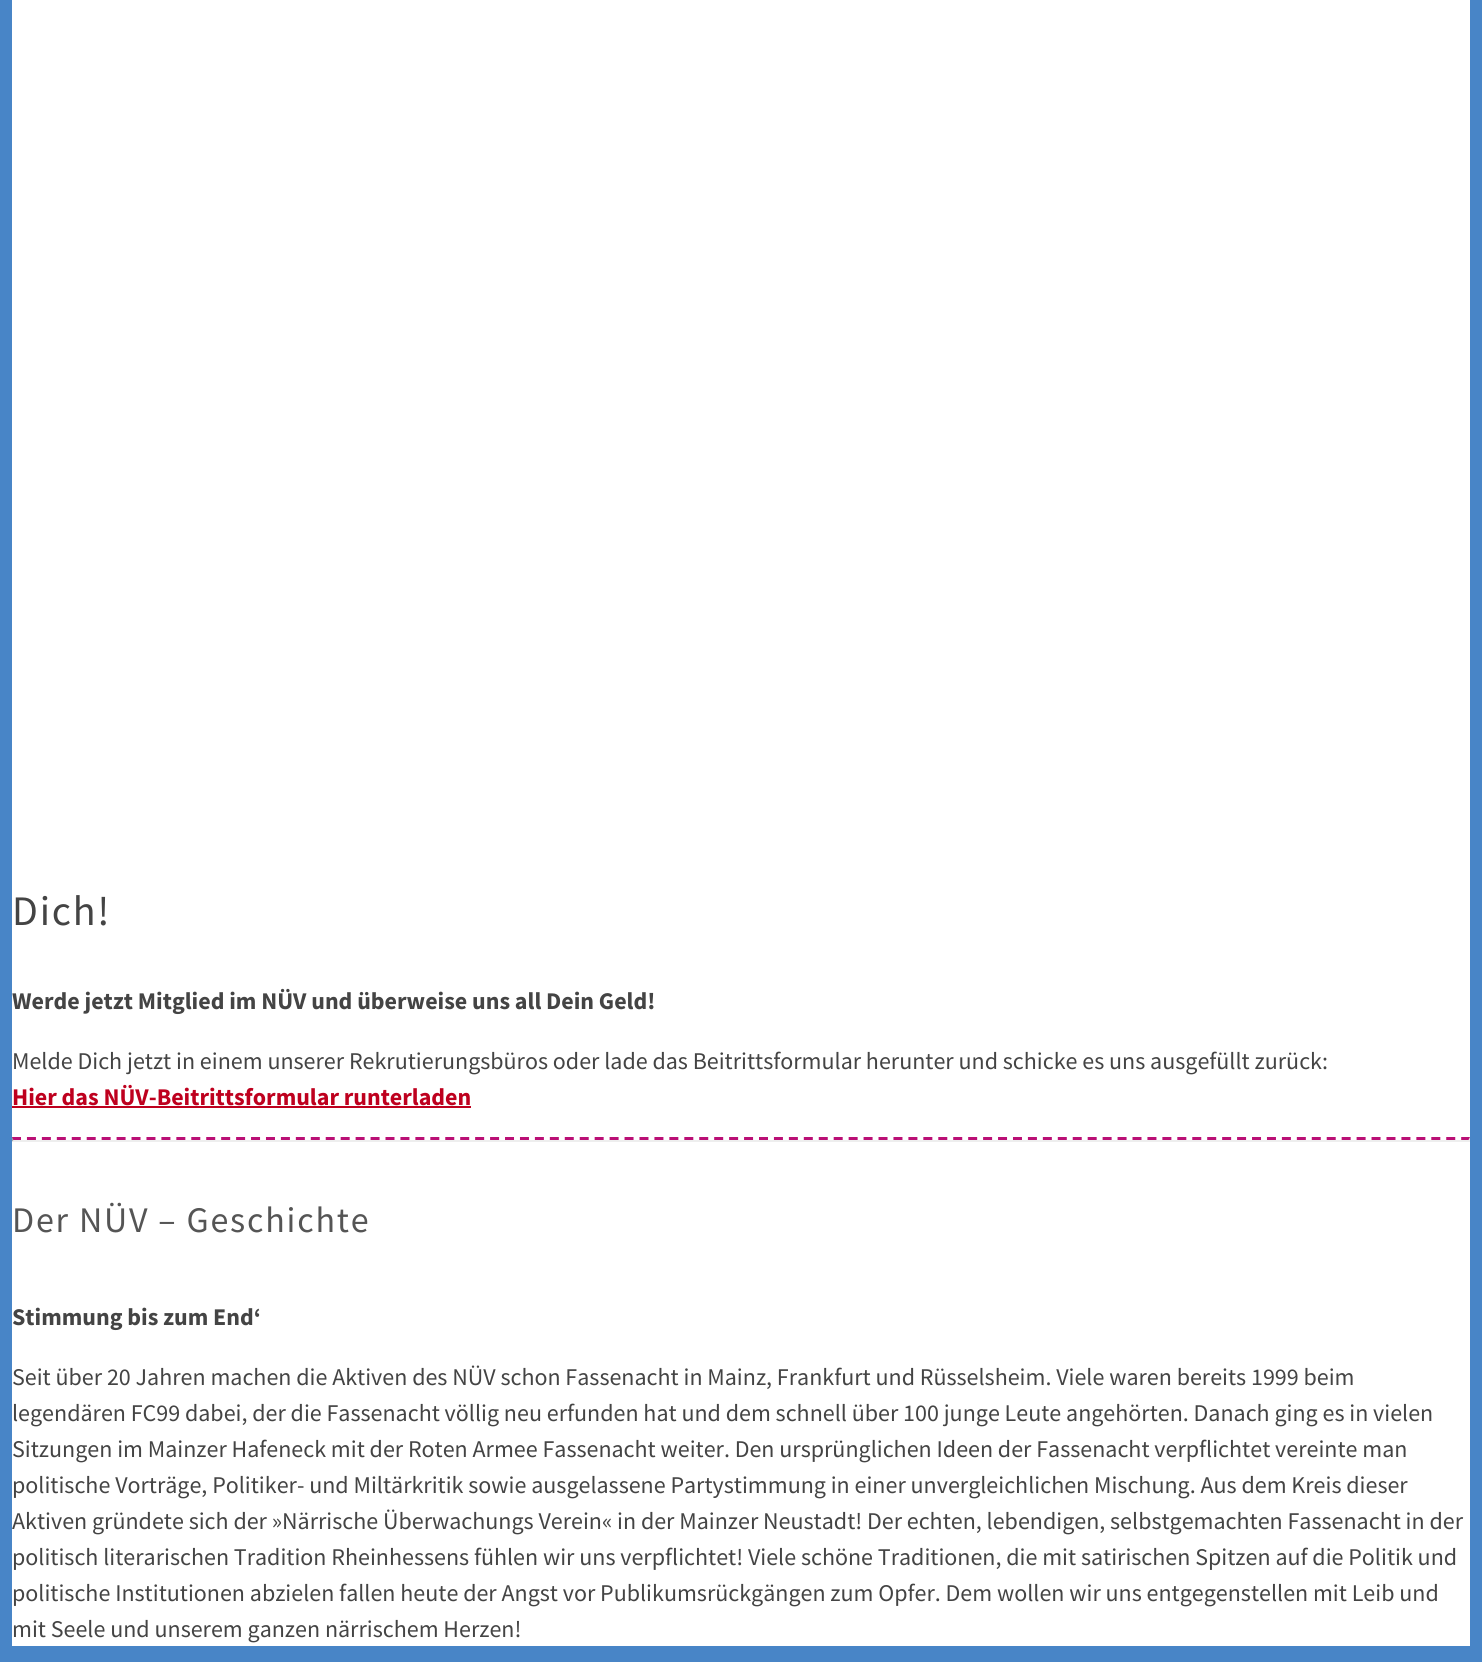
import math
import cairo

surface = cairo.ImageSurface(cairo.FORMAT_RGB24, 1482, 1662)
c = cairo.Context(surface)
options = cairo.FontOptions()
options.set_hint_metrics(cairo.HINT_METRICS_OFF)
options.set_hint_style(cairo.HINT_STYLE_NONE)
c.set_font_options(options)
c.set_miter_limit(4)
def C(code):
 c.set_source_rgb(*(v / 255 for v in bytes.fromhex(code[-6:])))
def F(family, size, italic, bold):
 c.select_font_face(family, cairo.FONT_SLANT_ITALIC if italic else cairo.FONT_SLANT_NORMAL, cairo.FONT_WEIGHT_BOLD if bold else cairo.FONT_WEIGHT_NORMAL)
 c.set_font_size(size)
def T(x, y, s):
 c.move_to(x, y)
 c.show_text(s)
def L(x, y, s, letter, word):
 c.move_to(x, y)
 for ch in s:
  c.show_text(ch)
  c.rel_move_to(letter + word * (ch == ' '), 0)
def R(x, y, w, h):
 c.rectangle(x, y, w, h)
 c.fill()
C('4885c7')
c.paint()
C('ffffff')
R(12,0,1458,1646)
F('Source Sans Pro',42,0,0)
C('444444')
L(12,925,'Dich!',1.8,0)
F('Source Sans Pro',24,0,1)
T(12,1009,'Werde jetzt Mitglied im NÜV und überweise uns all Dein Geld!')
F('Source Sans Pro',24,0,0)
T(12,1069,'Melde Dich jetzt in einem unserer Rekrutierungsbüros oder lade das Beitrittsformular herunter und schicke es uns ausgefüllt zurück:')
F('Source Sans Pro',24,0,1)
C('be001e')
T(12,1105,'Hier das NÜV-Beitrittsformular runterladen')
R(12,1106,459,2)
c.new_path()
c.move_to(12,1138.5)
c.line_to(1470,1138.5)
C('ba0f75')
c.set_line_width(3)
c.set_dash([9,5.94])
c.stroke()
C('eeeeee')
c.new_path()
c.move_to(1470,1137)
c.line_to(1470,1141.5)
c.line_to(1468.5,1140)
c.close_path()
c.fill()
R(12,1140,1458,2)
C('9f9f9f')
c.new_path()
c.move_to(12,1141.5)
c.line_to(12,1137)
c.line_to(13.5,1140)
c.close_path()
c.fill()
F('Source Sans Pro',36,0,0)
C('555555')
L(12,1232,'Der NÜV – Geschichte',1.8,0)
F('Source Sans Pro',24,0,1)
C('444444')
T(12,1325,'Stimmung bis zum End‘')
F('Source Sans Pro',24,0,0)
T(12,1385,'Seit über 20 Jahren machen die Aktiven des NÜV schon Fassenacht in Mainz, Frankfurt und Rüsselsheim. Viele waren bereits 1999 beim')
T(12,1421,'legendären FC99 dabei, der die Fassenacht völlig neu erfunden hat und dem schnell über 100 junge Leute angehörten. Danach ging es in vielen')
T(12,1457,'Sitzungen im Mainzer Hafeneck mit der Roten Armee Fassenacht weiter. Den ursprünglichen Ideen der Fassenacht verpflichtet vereinte man')
T(12,1493,'politische Vorträge, Politiker- und Miltärkritik sowie ausgelassene Partystimmung in einer unvergleichlichen Mischung. Aus dem Kreis dieser')
T(12,1529,'Aktiven gründete sich der »Närrische Überwachungs Verein« in der Mainzer Neustadt! Der echten, lebendigen, selbstgemachten Fassenacht in der')
T(12,1565,'politisch literarischen Tradition Rheinhessens fühlen wir uns verpflichtet! Viele schöne Traditionen, die mit satirischen Spitzen auf die Politik und')
T(12,1601,'politische Institutionen abzielen fallen heute der Angst vor Publikumsrückgängen zum Opfer. Dem wollen wir uns entgegenstellen mit Leib und')
T(12,1637,'mit Seele und unserem ganzen närrischem Herzen!')
surface.write_to_png('o.png')
